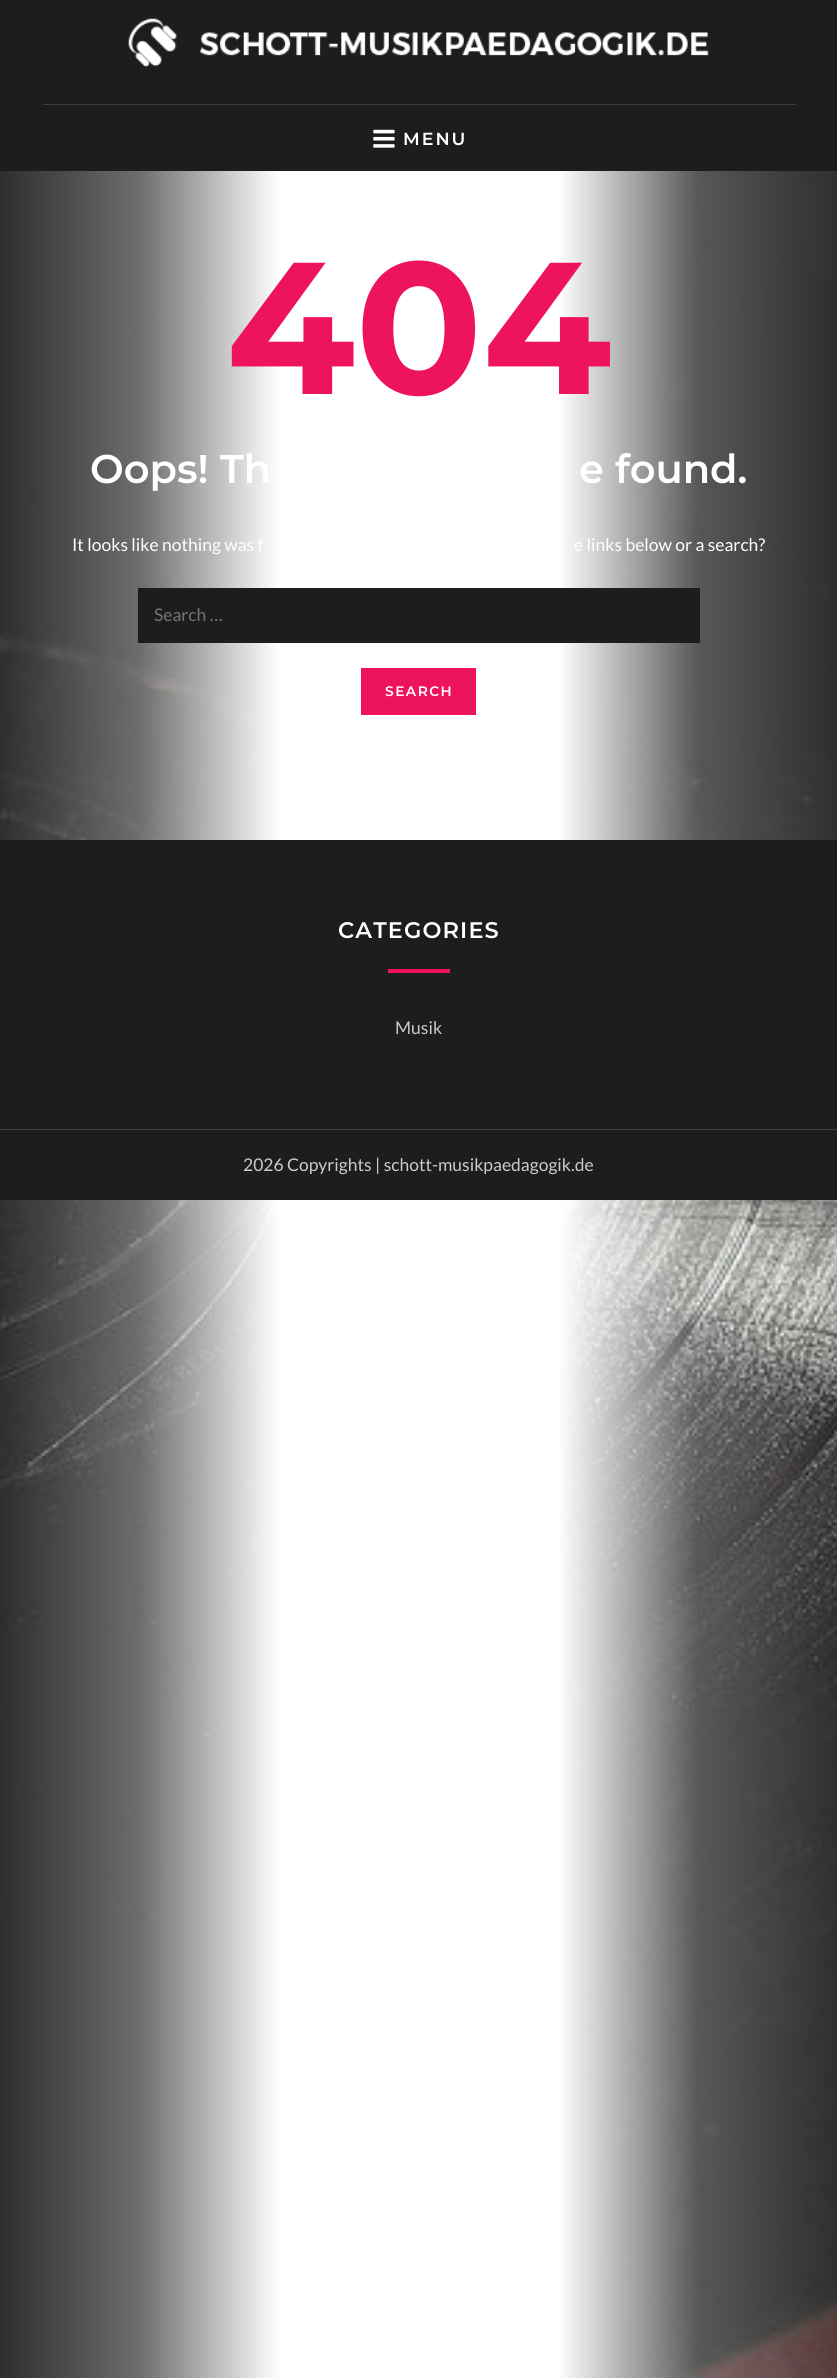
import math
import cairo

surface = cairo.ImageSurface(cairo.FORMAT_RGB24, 837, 2378)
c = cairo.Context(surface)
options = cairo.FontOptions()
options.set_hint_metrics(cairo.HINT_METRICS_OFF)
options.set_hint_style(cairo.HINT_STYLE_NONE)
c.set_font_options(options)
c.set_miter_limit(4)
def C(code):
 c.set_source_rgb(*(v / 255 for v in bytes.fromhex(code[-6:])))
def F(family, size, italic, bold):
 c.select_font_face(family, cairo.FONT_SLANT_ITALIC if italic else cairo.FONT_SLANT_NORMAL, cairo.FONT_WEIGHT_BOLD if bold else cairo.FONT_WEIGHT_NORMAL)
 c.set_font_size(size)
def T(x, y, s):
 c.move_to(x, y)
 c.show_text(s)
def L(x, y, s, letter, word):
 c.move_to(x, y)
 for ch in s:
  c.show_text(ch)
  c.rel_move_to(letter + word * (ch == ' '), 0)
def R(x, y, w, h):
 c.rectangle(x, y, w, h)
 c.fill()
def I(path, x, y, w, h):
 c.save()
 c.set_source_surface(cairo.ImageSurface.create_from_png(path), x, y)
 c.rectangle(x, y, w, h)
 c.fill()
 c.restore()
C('ffffff')
c.paint()
I('1.png',0,171,837,2207)
C('1d1d1d')
R(0,0,837,171)
C('3f3f3f')
R(43,104,753,1)
I('2.png',128,18,581,49)
I('3.png',373,129,22,19)
F('Montserrat SemiBold',17.5,0,0)
C('ffffff')
L(403,145,'MENU',2,0)
F('Montserrat',187.5,0,1)
C('ed145b')
T(226,394,'404')
F('Montserrat SemiBold',40,0,0)
C('ffffff')
T(90,483,'Oops! Th')
T(579,483,'e found.')
F('Lato',17.5,0,0)
T(72,551,'It looks like nothing was f')
T(574,551,'e links below or a search?')
C('1d1d1d')
R(138,588,562,55)
C('757575')
T(154,621,'Search …')
C('ed145b')
R(361,668,115,47)
F('Montserrat SemiBold',13.75,0,0)
C('ffffff')
L(385,696,'SEARCH',1.5,0)
C('1d1d1d')
R(0,840,837,360)
F('Montserrat SemiBold',22.5,0,0)
C('ffffff')
L(338,938,'CATEGORIES',1.1,0)
C('ed145b')
R(388,969,62,4)
F('Lato',17.5,0,0)
C('cccccc')
T(395,1034,'Musik')
C('3f3f3f')
R(0,1129,837,1)
C('cccccc')
T(243,1171,'2026 Copyrights | schott-musikpaedagogik.de')
surface.write_to_png('o.png')
